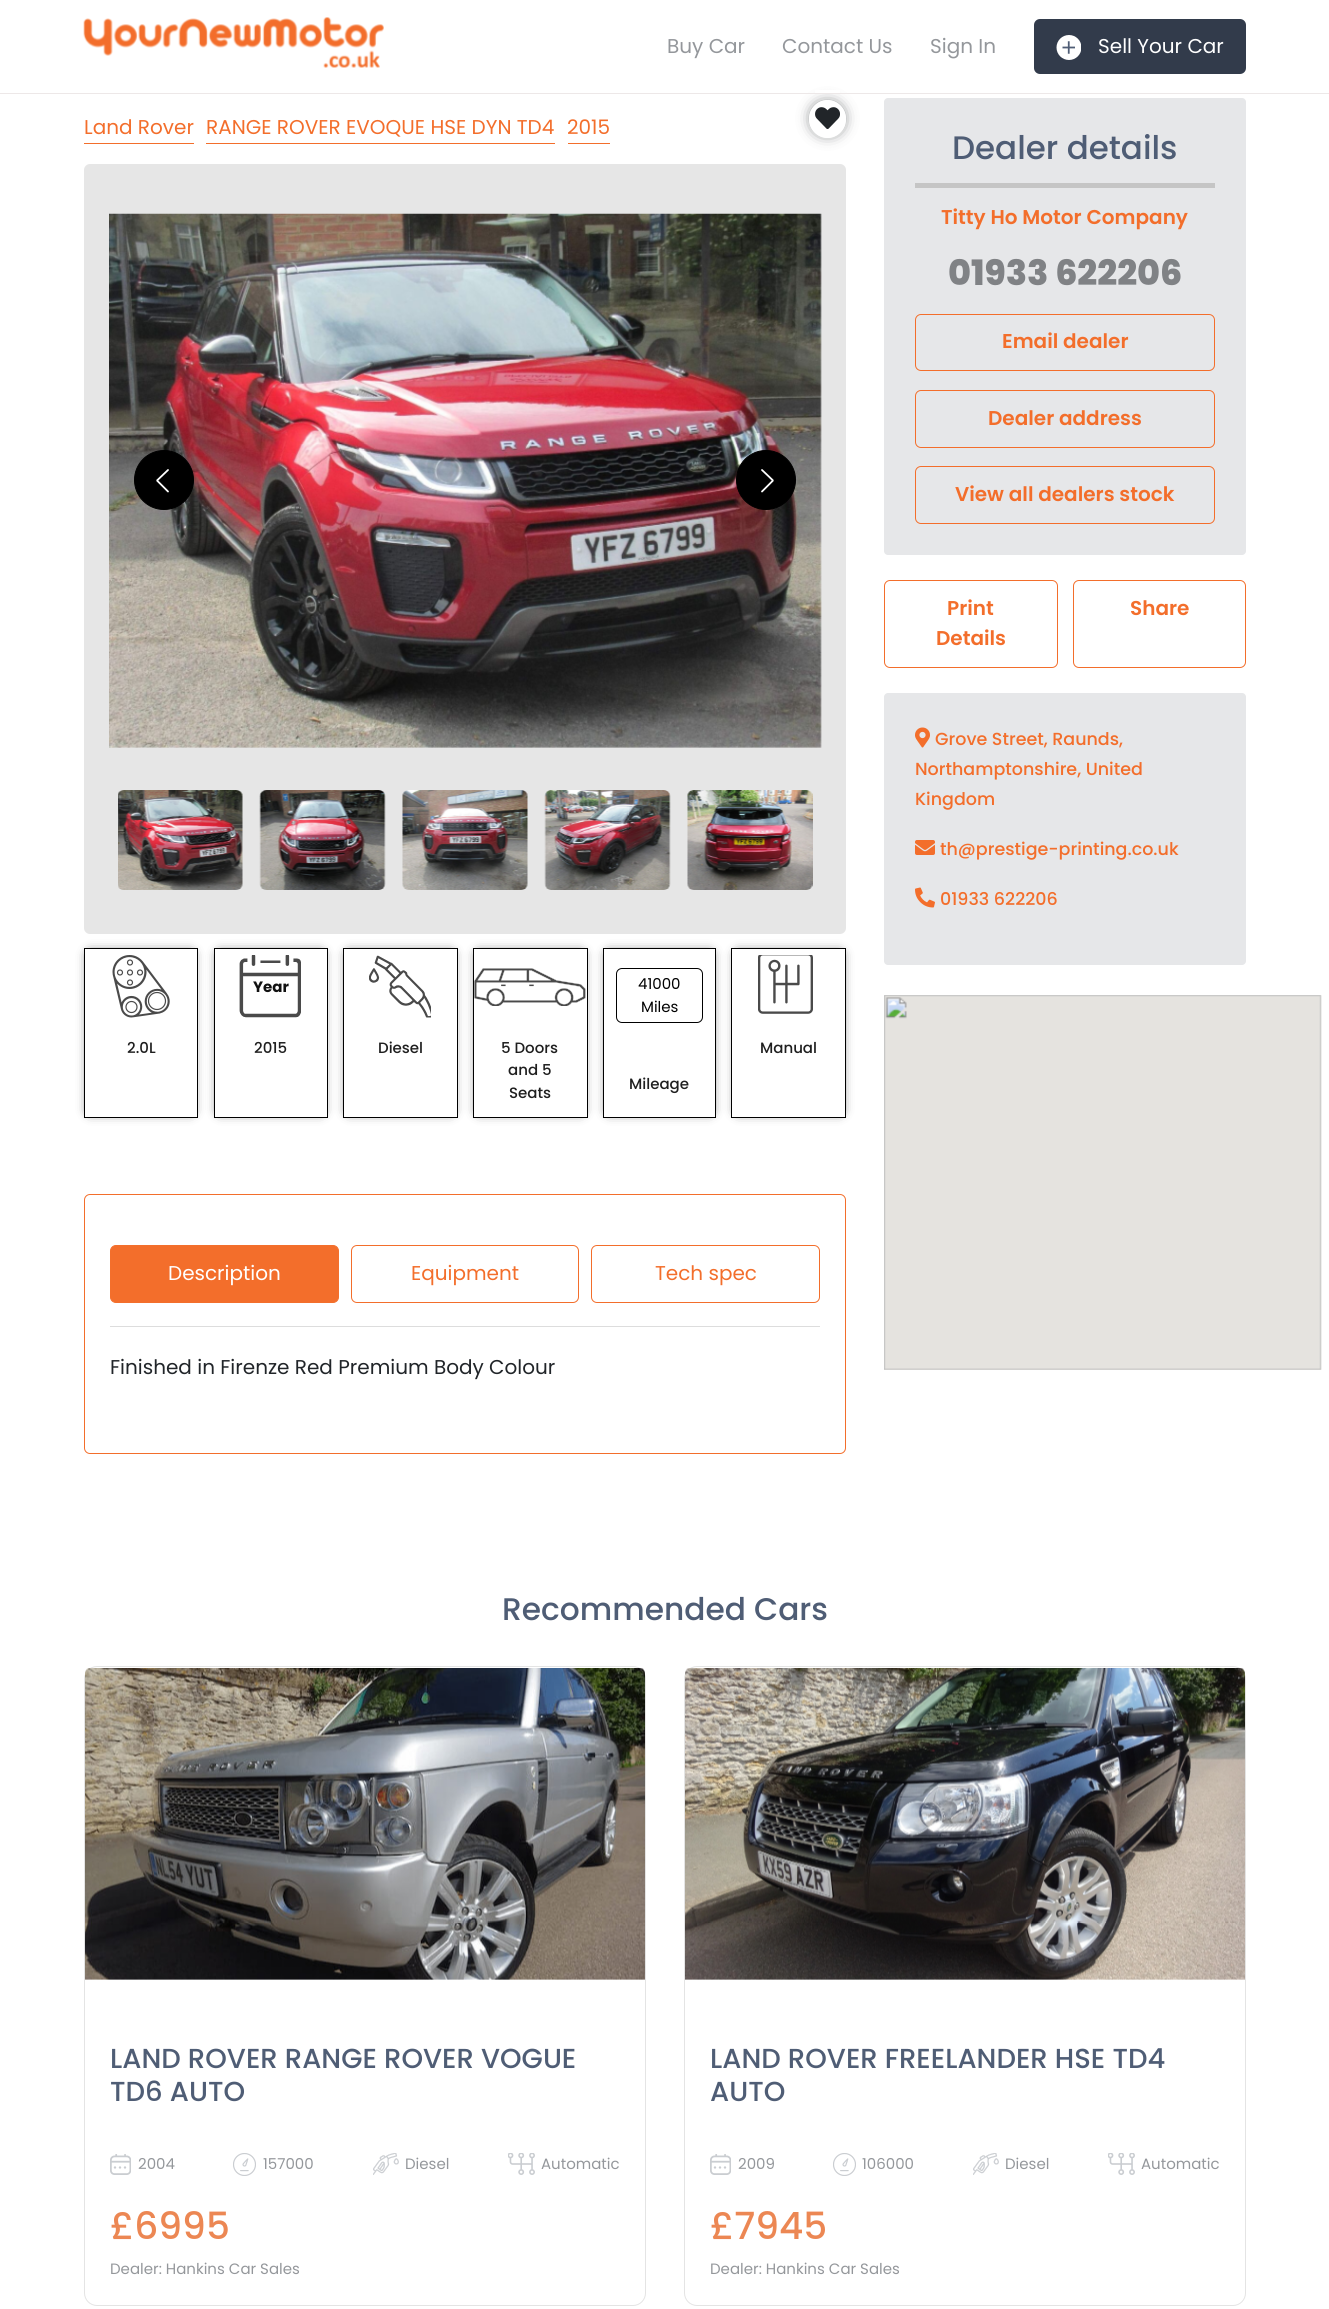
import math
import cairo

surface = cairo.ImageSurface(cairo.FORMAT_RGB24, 1329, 2309)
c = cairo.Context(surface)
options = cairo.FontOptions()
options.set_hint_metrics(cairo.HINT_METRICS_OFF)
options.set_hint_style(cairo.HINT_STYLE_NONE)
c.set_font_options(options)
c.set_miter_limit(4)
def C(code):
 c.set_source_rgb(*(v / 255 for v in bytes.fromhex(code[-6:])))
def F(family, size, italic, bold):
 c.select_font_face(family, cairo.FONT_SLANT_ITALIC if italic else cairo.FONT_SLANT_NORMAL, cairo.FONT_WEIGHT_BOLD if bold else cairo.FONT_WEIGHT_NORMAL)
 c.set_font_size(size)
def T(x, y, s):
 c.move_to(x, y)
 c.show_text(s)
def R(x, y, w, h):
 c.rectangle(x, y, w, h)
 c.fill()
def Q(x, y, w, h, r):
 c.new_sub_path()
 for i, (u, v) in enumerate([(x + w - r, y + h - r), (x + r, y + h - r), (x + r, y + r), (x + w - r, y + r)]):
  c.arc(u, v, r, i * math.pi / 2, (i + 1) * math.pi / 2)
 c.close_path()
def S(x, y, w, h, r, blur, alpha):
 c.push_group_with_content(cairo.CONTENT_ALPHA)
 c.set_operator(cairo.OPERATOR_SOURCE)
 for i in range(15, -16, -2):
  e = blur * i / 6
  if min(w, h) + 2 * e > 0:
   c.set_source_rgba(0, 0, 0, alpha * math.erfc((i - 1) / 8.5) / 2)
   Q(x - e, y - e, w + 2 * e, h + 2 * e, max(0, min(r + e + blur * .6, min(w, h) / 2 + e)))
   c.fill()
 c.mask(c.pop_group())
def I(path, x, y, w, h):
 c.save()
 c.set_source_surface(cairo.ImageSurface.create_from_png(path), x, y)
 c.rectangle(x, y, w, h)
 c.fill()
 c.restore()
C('ffffff')
c.paint()
c.save()
c.set_fill_rule(cairo.FILL_RULE_EVEN_ODD)
c.new_path()
c.move_to(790,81)
c.line_to(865,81)
c.line_to(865,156)
c.line_to(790,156)
c.close_path()
c.move_to(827.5,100)
c.curve_to(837.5,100,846,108.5,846,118.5)
c.line_to(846,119.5)
c.curve_to(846,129.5,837.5,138,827.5,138)
c.curve_to(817.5,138,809,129.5,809,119.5)
c.line_to(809,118.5)
c.curve_to(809,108.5,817.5,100,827.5,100)
c.close_path()
c.clip()
C('212529')
S(815,106,25,25,12.5,8,1)
c.restore()
C('ffffff')
R(815,90,25,3)
C('ede8e8')
R(0,93,1329,1)
I('1.png',83,17,301,51)
F('Poppins',20,0,0)
C('94979b')
T(667,53,'Buy Car')
T(782,53,'Contact Us')
T(930,53,'Sign In')
C('323b4b')
Q(1034,19,212,55,6)
c.fill()
I('2.png',1056,35,25,25)
C('ffffff')
T(1098,53,'Sell Your Car')
C('f36e2b')
R(84,143,110,1)
T(84,134,'Land Rover')
R(206,143,349,1)
T(206,134,'RANGE ROVER EVOQUE HSE DYN TD4')
R(568,143,42,1)
T(567,134,'2015')
I('3.png',815,107,25,22)
C('e6e6e6')
Q(84,164,762,770,6)
c.fill()
I('4.png',109,213,713,535)
C('000000')
c.arc(164,480,29.5,0,2 * math.pi)
c.fill_preserve()
c.set_line_width(1)
c.stroke()
c.new_path()
c.move_to(168,470)
c.line_to(157,480.5)
c.line_to(168,491.5)
C('ffffff')
c.set_line_width(1.8)
c.set_line_cap(cairo.LINE_CAP_ROUND)
c.set_line_join(cairo.LINE_JOIN_BEVEL)
c.stroke()
C('000000')
c.arc(766,480,29.5,0,2 * math.pi)
c.fill_preserve()
c.set_line_width(1)
c.set_line_cap(cairo.LINE_CAP_BUTT)
c.set_line_join(cairo.LINE_JOIN_MITER)
c.stroke()
c.new_path()
c.move_to(762,470)
c.line_to(773,480.5)
c.line_to(762,491.5)
C('ffffff')
c.set_line_width(1.8)
c.set_line_cap(cairo.LINE_CAP_ROUND)
c.set_line_join(cairo.LINE_JOIN_BEVEL)
c.stroke()
I('5.png',118,790,125,100)
I('6.png',259,790,127,100)
I('7.png',402,790,126,100)
I('8.png',544,790,127,100)
I('9.png',687,790,126,100)
c.save()
c.set_fill_rule(cairo.FILL_RULE_EVEN_ODD)
c.new_path()
c.move_to(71,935)
c.line_to(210,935)
c.line_to(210,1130)
c.line_to(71,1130)
c.close_path()
c.move_to(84,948)
c.line_to(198,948)
c.line_to(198,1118)
c.line_to(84,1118)
c.close_path()
c.clip()
C('000000')
S(90,954,101,157,0,6,1)
c.restore()
c.rectangle(84.5,948.5,113,169)
C('000000')
c.set_line_width(1)
c.set_line_cap(cairo.LINE_CAP_BUTT)
c.set_line_join(cairo.LINE_JOIN_MITER)
c.stroke()
I('10.png',112,955,58,63)
F('Poppins Medium',15,0,0)
C('1f1f1f')
T(127,1053,'2.0L')
c.save()
c.set_fill_rule(cairo.FILL_RULE_EVEN_ODD)
c.new_path()
c.move_to(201,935)
c.line_to(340,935)
c.line_to(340,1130)
c.line_to(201,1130)
c.close_path()
c.move_to(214,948)
c.line_to(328,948)
c.line_to(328,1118)
c.line_to(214,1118)
c.close_path()
c.clip()
C('000000')
S(220,954,101,157,0,6,1)
c.restore()
c.rectangle(214.5,948.5,113,169)
C('000000')
c.stroke()
I('11.png',239,955,62,63)
F('Poppins',15,0,1)
C('111111')
T(253,992,'Year')
F('Poppins Medium',15,0,0)
C('1f1f1f')
T(254,1053,'2015')
c.save()
c.set_fill_rule(cairo.FILL_RULE_EVEN_ODD)
c.new_path()
c.move_to(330,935)
c.line_to(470,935)
c.line_to(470,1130)
c.line_to(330,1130)
c.close_path()
c.move_to(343,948)
c.line_to(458,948)
c.line_to(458,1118)
c.line_to(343,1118)
c.close_path()
c.clip()
C('000000')
S(349,954,102,157,0,6,1)
c.restore()
c.rectangle(343.5,948.5,114,169)
C('000000')
c.stroke()
I('12.png',369,955,62,63)
C('1f1f1f')
T(378,1053,'Diesel')
c.save()
c.set_fill_rule(cairo.FILL_RULE_EVEN_ODD)
c.new_path()
c.move_to(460,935)
c.line_to(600,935)
c.line_to(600,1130)
c.line_to(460,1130)
c.close_path()
c.move_to(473,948)
c.line_to(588,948)
c.line_to(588,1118)
c.line_to(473,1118)
c.close_path()
c.clip()
C('000000')
S(479,954,102,157,0,6,1)
c.restore()
c.rectangle(473.5,948.5,114,169)
C('000000')
c.stroke()
I('13.png',474,968,112,38)
C('1f1f1f')
T(501,1053,'5 Doors')
T(508,1075,'and 5')
T(509,1098,'Seats')
c.save()
c.set_fill_rule(cairo.FILL_RULE_EVEN_ODD)
c.new_path()
c.move_to(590,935)
c.line_to(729,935)
c.line_to(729,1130)
c.line_to(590,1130)
c.close_path()
c.move_to(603,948)
c.line_to(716,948)
c.line_to(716,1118)
c.line_to(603,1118)
c.close_path()
c.clip()
C('000000')
S(609,954,101,157,0,6,1)
c.restore()
c.rectangle(603.5,948.5,112,169)
C('000000')
c.stroke()
Q(616.5,968.5,86,54,5.5)
c.stroke()
F('Poppins',15,0,0)
T(638,989,'41000')
T(641,1012,'Miles')
F('Poppins Medium',15,0,0)
C('1f1f1f')
T(629,1089,'Mileage')
c.save()
c.set_fill_rule(cairo.FILL_RULE_EVEN_ODD)
c.new_path()
c.move_to(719,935)
c.line_to(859,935)
c.line_to(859,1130)
c.line_to(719,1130)
c.close_path()
c.move_to(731,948)
c.line_to(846,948)
c.line_to(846,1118)
c.line_to(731,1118)
c.close_path()
c.clip()
C('000000')
S(738,954,102,157,0,6,1)
c.restore()
c.rectangle(731.5,948.5,114,169)
C('000000')
c.stroke()
I('14.png',758,955,55,59)
C('1f1f1f')
T(760,1053,'Manual')
Q(84.5,1194.5,761,259,5.5)
C('f36e2b')
c.stroke()
Q(110.5,1245.5,228,57,5.5)
c.fill_preserve()
C('f36f2c')
c.stroke()
F('Poppins',20,0,0)
C('ffffff')
T(168,1280,'Description')
Q(351.5,1245.5,227,57,5.5)
C('f36e2b')
c.stroke()
T(411,1280,'Equipment')
Q(591.5,1245.5,228,57,5.5)
c.stroke()
T(655,1280,'Tech spec')
C('dddddd')
R(110,1326,710,1)
C('212529')
T(110,1374,'Finished in Firenze Red Premium Body Colour')
C('e6e7e9')
Q(884,98,362,457,4)
c.fill()
F('Poppins Medium',32.5,0,0)
C('4f5d75')
T(952,159,'Dealer details')
C('c5c5c5')
R(915,183,300,5)
F('Poppins SemiBold',20,0,0)
C('f36e2b')
T(941,224,'Titty Ho Motor Company')
F('Poppins ExtraBold',35,0,0)
C('808285')
T(948,285,'01933 622206')
Q(915.5,314.5,299,56,5.5)
C('f36e2b')
c.stroke()
F('Poppins SemiBold',20,0,0)
T(1002,348,'Email dealer')
Q(915.5,390.5,299,57,5.5)
c.stroke()
T(988,425,'Dealer address')
Q(915.5,466.5,299,57,5.5)
c.stroke()
T(955,501,'View all dealers stock')
Q(884.5,580.5,173,87,5.5)
c.stroke()
T(947,615,'Print')
T(936,645,'Details')
Q(1073.5,580.5,172,87,5.5)
c.stroke()
T(1130,615,'Share')
C('e6e7e9')
Q(884,693,362,272,4)
c.fill()
I('15.png',915,727,15,21)
F('Poppins Medium',17.5,0,0)
C('f36e2b')
T(935,745,'Grove Street, Raunds,')
T(915,775,'Northamptonshire, United')
T(915,805,'Kingdom')
I('16.png',915,840,20,15)
T(940,855,'th@prestige-printing.co.uk')
I('17.png',915,887,20,21)
T(940,905,'01933 622206')
I('18.png',884,995,438,375)
F('Poppins Medium',31.25,0,0)
C('4f5d75')
T(502,1620,'Recommended Cars')
Q(84.5,1666.5,561,639,12.5)
C('e4e4e4')
c.stroke()
I('19.png',85,1668,560,312)
F('Poppins Medium',27.5,0,0)
C('4f5d75')
T(110,2068,'LAND ROVER RANGE ROVER VOGUE')
T(110,2101,'TD6 AUTO')
I('20.png',110,2154,21,21)
F('Poppins',15,0,0)
C('94979b')
T(138,2169,'2004')
I('21.png',233,2153,23,23)
T(263,2169,'157000')
I('22.png',373,2153,26,22)
T(405,2169,'Diesel')
I('23.png',508,2153,27,22)
T(541,2169,'Automatic')
F('Poppins Medium',37.5,0,0)
C('ec8753')
T(110,2239,'£6995')
F('Poppins',15,0,0)
C('94979b')
T(110,2274,'Dealer: Hankins Car Sales')
Q(684.5,1666.5,561,639,12.5)
C('e4e4e4')
c.stroke()
I('24.png',685,1668,560,312)
F('Poppins Medium',27.5,0,0)
C('4f5d75')
T(710,2068,'LAND ROVER FREELANDER HSE TD4')
T(710,2101,'AUTO')
I('20.png',710,2154,21,21)
F('Poppins',15,0,0)
C('94979b')
T(738,2169,'2009')
I('21.png',833,2153,23,23)
T(862,2169,'106000')
I('22.png',973,2153,26,22)
T(1005,2169,'Diesel')
I('23.png',1108,2153,27,22)
T(1141,2169,'Automatic')
F('Poppins Medium',37.5,0,0)
C('ec8753')
T(710,2239,'£7945')
F('Poppins',15,0,0)
C('94979b')
T(710,2274,'Dealer: Hankins Car Sales')
surface.write_to_png('o.png')
